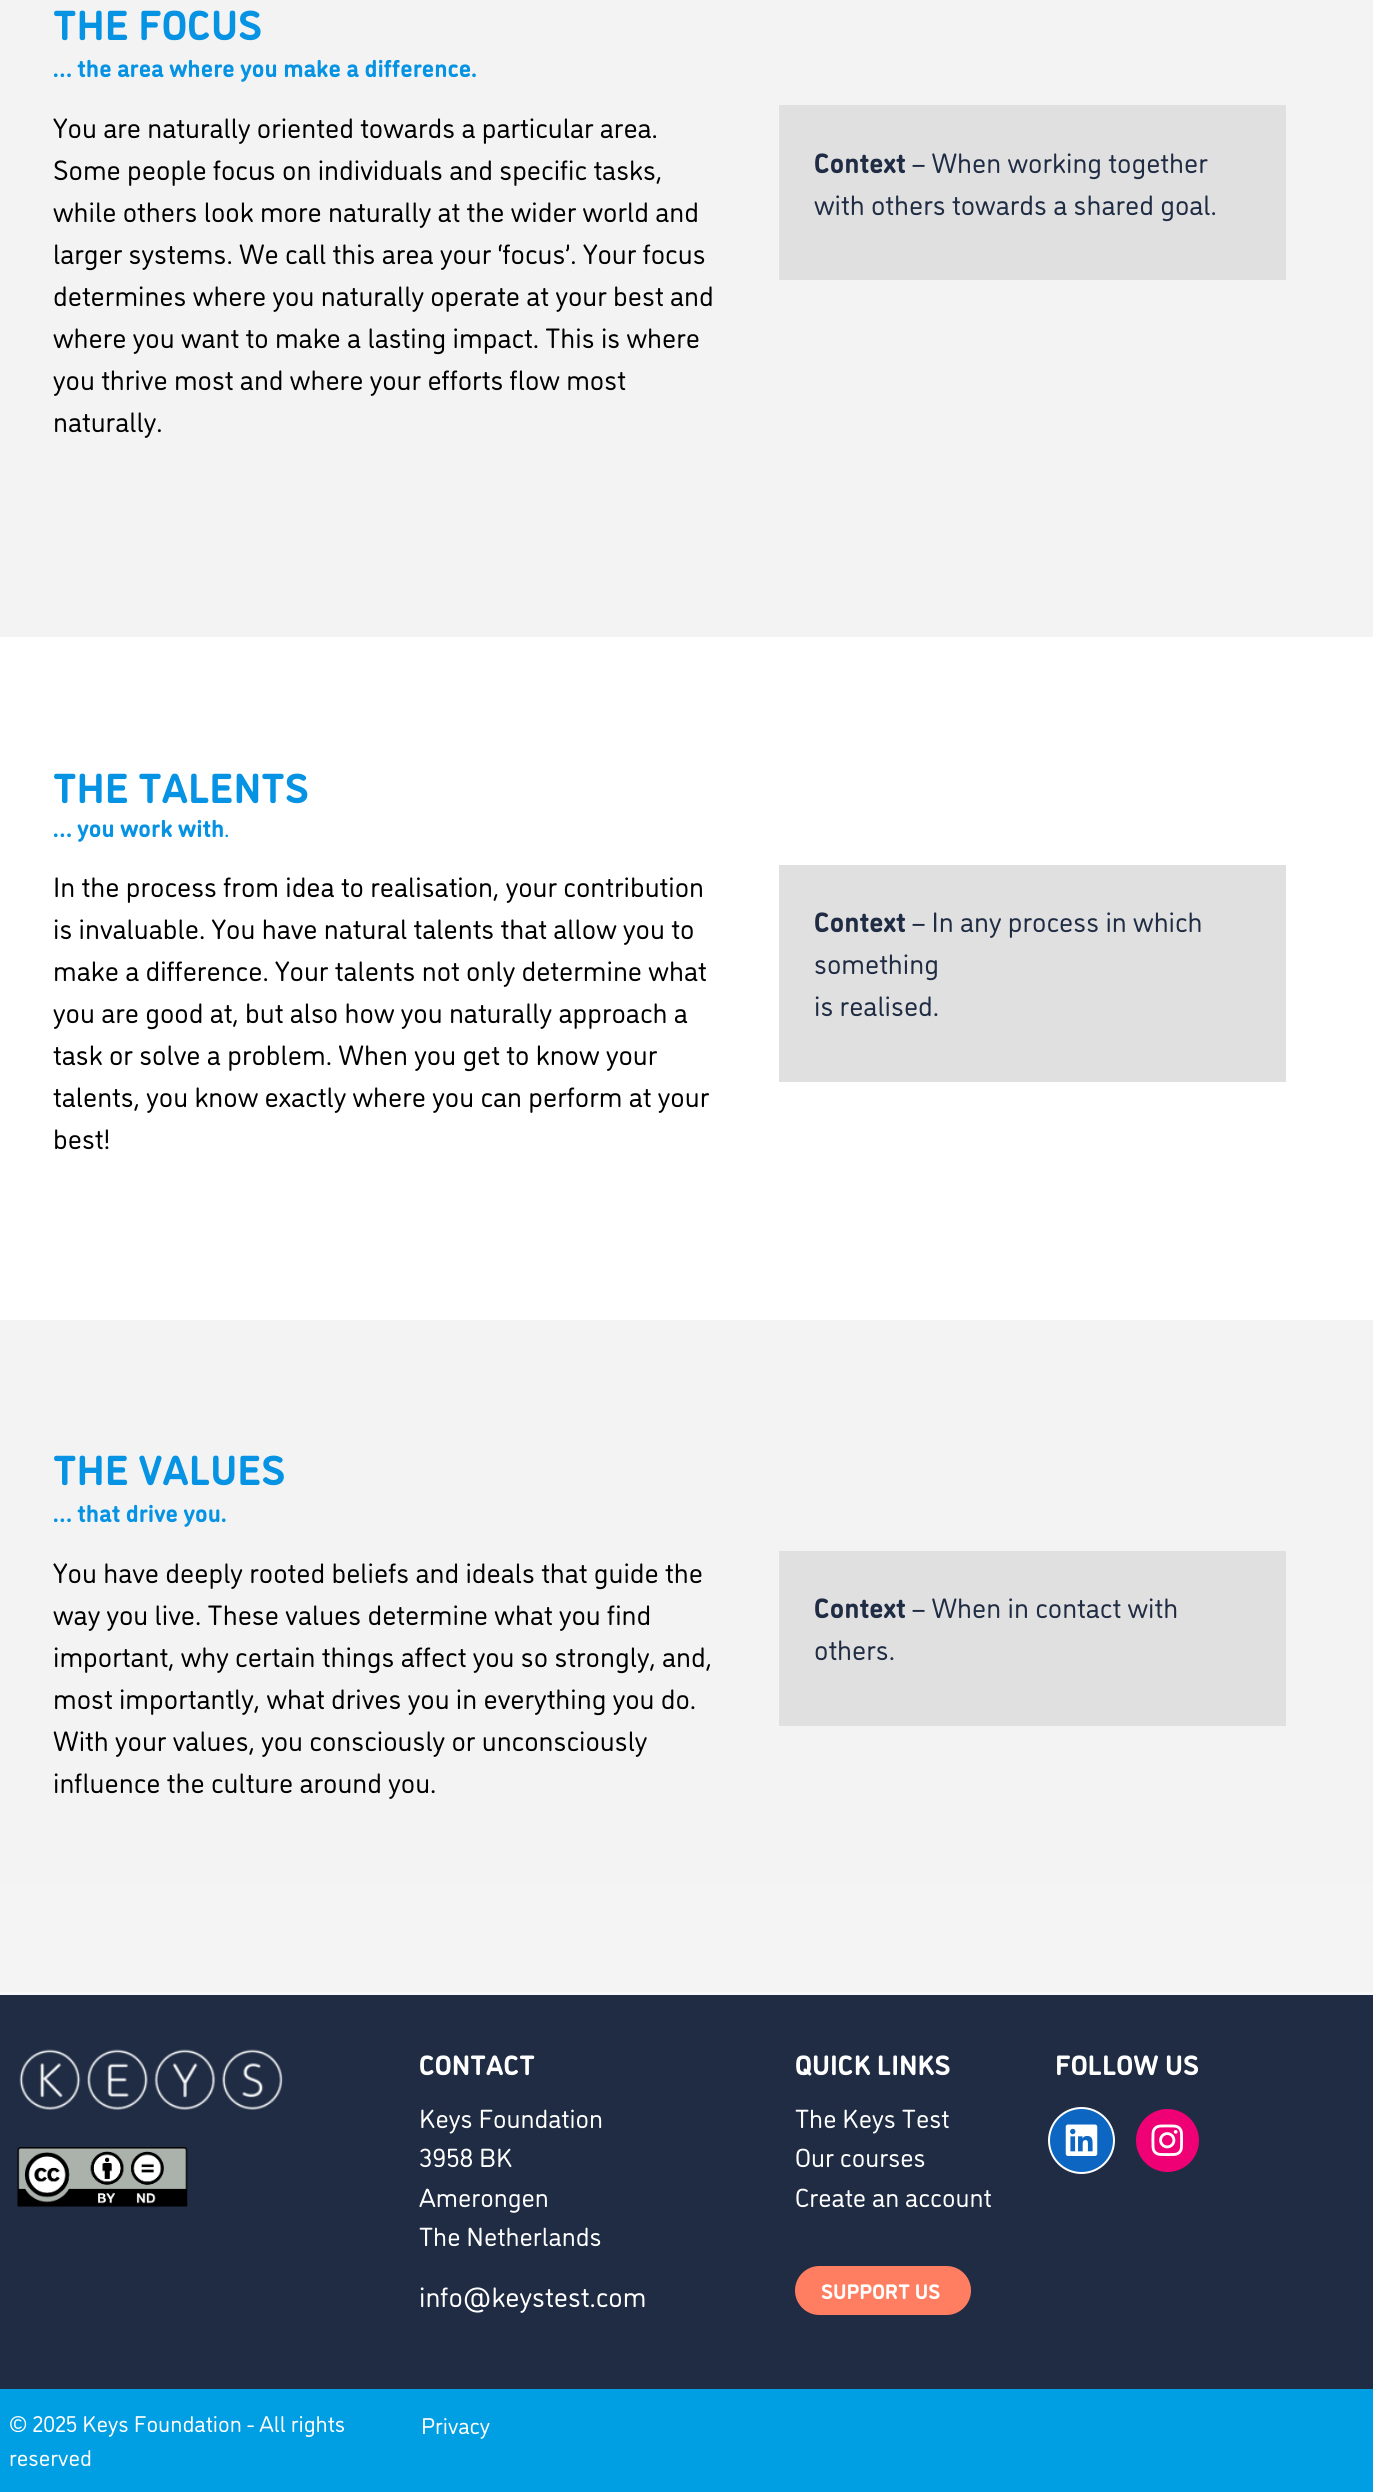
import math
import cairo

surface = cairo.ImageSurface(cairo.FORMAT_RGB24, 1373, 2492)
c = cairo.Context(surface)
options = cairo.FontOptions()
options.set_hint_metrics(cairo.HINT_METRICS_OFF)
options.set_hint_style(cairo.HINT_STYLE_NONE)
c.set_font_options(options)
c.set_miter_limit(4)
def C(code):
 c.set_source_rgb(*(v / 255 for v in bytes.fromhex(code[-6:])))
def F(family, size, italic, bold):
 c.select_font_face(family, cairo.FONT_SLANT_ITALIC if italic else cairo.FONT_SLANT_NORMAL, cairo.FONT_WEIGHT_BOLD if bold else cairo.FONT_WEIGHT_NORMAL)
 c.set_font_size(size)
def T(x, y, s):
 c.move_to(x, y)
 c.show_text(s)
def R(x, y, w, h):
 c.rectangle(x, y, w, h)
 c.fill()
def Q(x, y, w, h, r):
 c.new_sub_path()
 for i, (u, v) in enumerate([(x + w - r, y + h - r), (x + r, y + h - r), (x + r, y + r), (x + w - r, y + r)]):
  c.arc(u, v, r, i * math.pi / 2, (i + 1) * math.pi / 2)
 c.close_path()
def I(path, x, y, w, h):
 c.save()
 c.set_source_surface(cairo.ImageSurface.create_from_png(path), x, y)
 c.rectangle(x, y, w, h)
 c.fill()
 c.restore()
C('f7f8f9')
c.paint()
C('ffffff')
R(0,637,1373,683)
C('f3f3f3')
R(0,0,1373,637)
F('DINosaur',42,0,1)
C('0693e3')
T(53,40,'THE FOCUS')
F('DINosaur',24.5,0,1)
T(53,77,'… the area where you make a difference.')
F('DINosaur',28,0,0)
C('000000')
T(53,138,'You are naturally oriented towards a particular area.')
T(53,180,'Some people focus on individuals and specific tasks,')
T(53,222,'while others look more naturally at the wider world and')
T(53,264,'larger systems. We call this area your ‘focus’. Your focus')
T(53,306,'determines where you naturally operate at your best and')
T(53,348,'where you want to make a lasting impact. This is where')
T(53,390,'you thrive most and where your efforts flow most')
T(53,432,'naturally.')
C('e0e0e0')
R(779,105,507,175)
F('DINosaur',28,0,1)
C('1f2c43')
T(814,173,'Context')
F('DINosaur',28,0,0)
T(912,173,'– When working together')
T(814,215,'with others towards a shared goal.')
F('DINosaur',42,0,1)
C('0693e3')
T(53,803,'THE TALENTS')
F('DINosaur',24.5,0,1)
T(53,837,'… you work with')
F('DINosaur',24.5,0,0)
T(224,837,'.')
F('DINosaur',28,0,0)
C('000000')
T(53,897,'In the process from idea to realisation, your contribution')
T(53,939,'is invaluable. You have natural talents that allow you to')
T(53,981,'make a difference. Your talents not only determine what')
T(53,1023,'you are good at, but also how you naturally approach a')
T(53,1065,'task or solve a problem. When you get to know your')
T(53,1107,'talents, you know exactly where you can perform at your')
T(53,1149,'best!')
C('e0e0e0')
R(779,865,507,217)
F('DINosaur',28,0,1)
C('1f2c43')
T(814,932,'Context')
F('DINosaur',28,0,0)
T(912,932,'– In any process in which')
T(814,974,'something')
T(814,1016,'is realised.')
C('f3f3f3')
R(0,1320,1373,565)
F('DINosaur',42,0,1)
C('0693e3')
T(53,1485,'THE VALUES')
F('DINosaur',24.5,0,1)
T(53,1522,'… that drive you.')
F('DINosaur',28,0,0)
C('000000')
T(53,1583,'You have deeply rooted beliefs and ideals that guide the')
T(53,1625,'way you live. These values determine what you find')
T(53,1667,'important, why certain things affect you so strongly, and,')
T(53,1709,'most importantly, what drives you in everything you do.')
T(53,1751,'With your values, you consciously or unconsciously')
T(53,1793,'influence the culture around you.')
C('e0e0e0')
R(779,1551,507,175)
F('DINosaur',28,0,1)
C('1f2c43')
T(814,1618,'Context')
F('DINosaur',28,0,0)
T(912,1618,'– When in contact with')
T(814,1660,'others.')
C('f4f4f4')
R(0,1885,1373,107)
C('1f2c43')
R(0,1995,1373,394)
I('1.png',19,2049,264,61)
I('2.png',17,2147,171,60)
F('DINosaur',28,0,1)
C('ffffff')
T(419,2075,'CONTACT')
F('DINosaur',26.25,0,0)
T(419,2128,'Keys Foundation')
T(419,2167,'3958 BK')
T(419,2207,'Amerongen')
T(419,2246,'The Netherlands')
F('DINosaur',28,0,0)
T(419,2307,'info@keystest.com')
F('DINosaur',28,0,1)
T(795,2075,'QUICK LINKS')
F('DINosaur',26.25,0,0)
T(795,2128,'The Keys Test')
T(795,2167,'Our courses')
T(795,2207,'Create an account')
C('ff7e61')
Q(795,2266,176,49,24.5)
c.fill()
F('DINosaur',21,0,1)
C('ffffff')
T(821,2299,'SUPPORT US')
F('DINosaur',28,0,1)
T(1055,2075,'FOLLOW US')
C('0d66c2')
c.new_path()
c.arc(1081.5,2140.5,32.5,0,2 * math.pi)
c.fill_preserve()
C('ffffff')
c.stroke()
I('3.png',1065,2124,33,32)
C('f00075')
c.arc(1167.5,2140.5,31.5,0,2 * math.pi)
c.fill()
I('4.png',1151,2124,32,32)
C('009ee3')
R(0,2389,1373,103)
F('DINosaur',22.75,0,0)
C('ffffff')
T(9,2432,'© 2025 Keys Foundation - All rights')
T(9,2466,'reserved')
T(421,2434,'Privacy')
surface.write_to_png('o.png')
